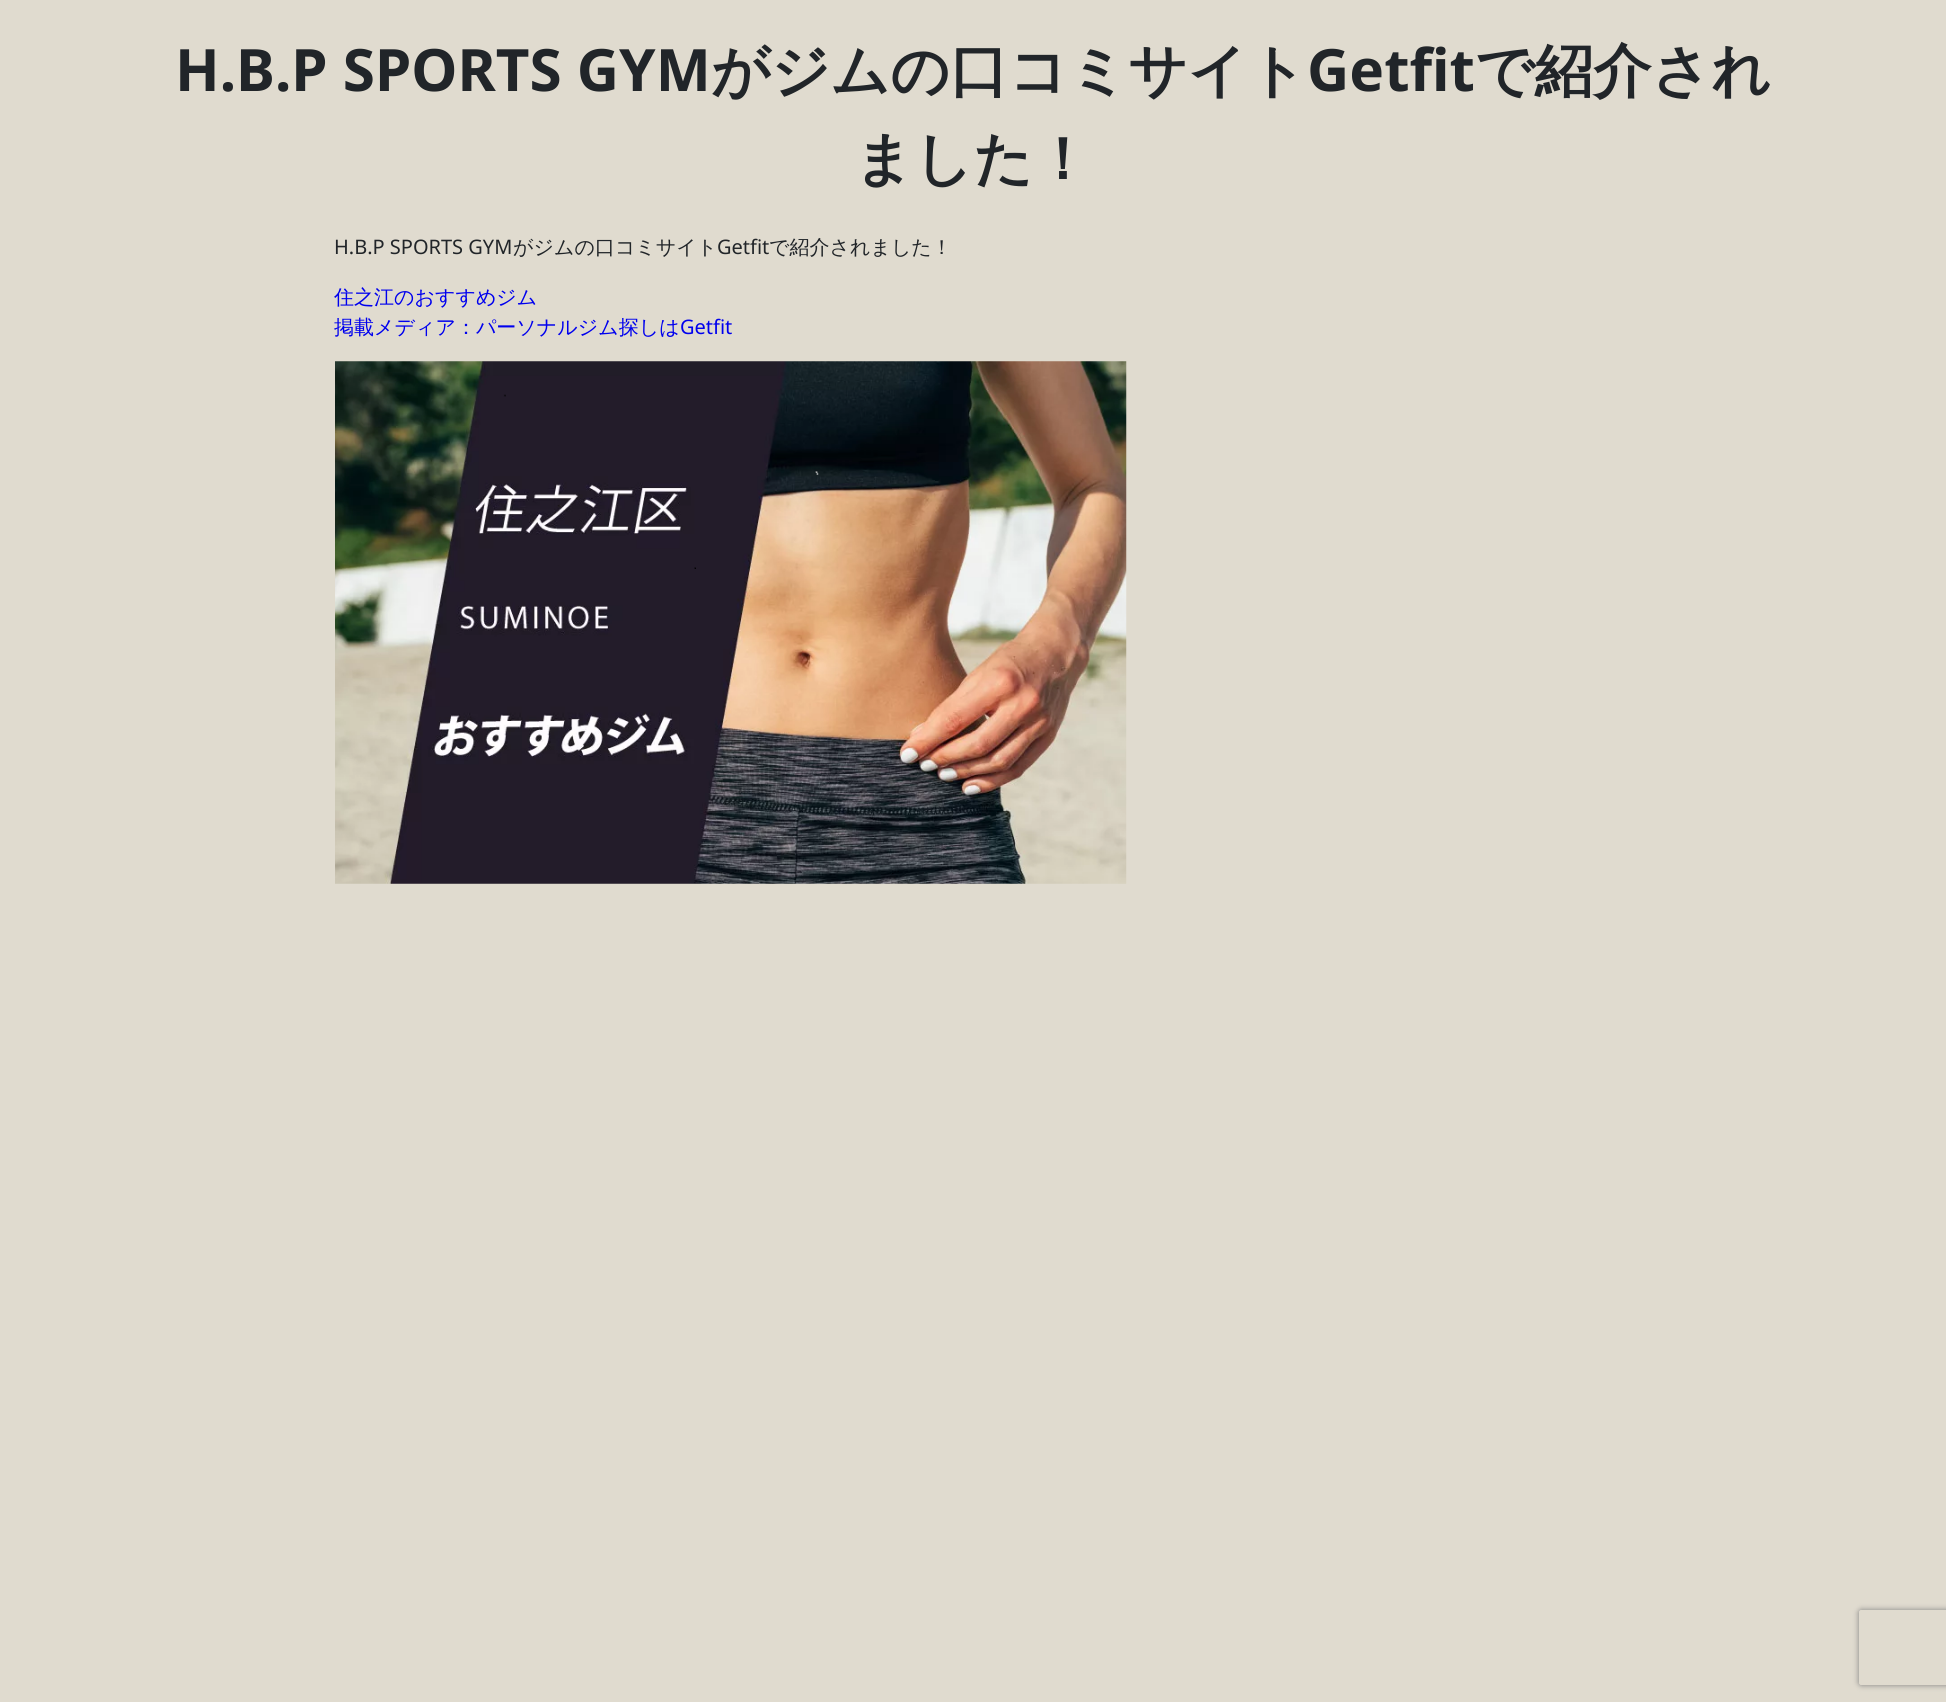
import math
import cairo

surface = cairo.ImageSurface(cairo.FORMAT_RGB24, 1946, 1702)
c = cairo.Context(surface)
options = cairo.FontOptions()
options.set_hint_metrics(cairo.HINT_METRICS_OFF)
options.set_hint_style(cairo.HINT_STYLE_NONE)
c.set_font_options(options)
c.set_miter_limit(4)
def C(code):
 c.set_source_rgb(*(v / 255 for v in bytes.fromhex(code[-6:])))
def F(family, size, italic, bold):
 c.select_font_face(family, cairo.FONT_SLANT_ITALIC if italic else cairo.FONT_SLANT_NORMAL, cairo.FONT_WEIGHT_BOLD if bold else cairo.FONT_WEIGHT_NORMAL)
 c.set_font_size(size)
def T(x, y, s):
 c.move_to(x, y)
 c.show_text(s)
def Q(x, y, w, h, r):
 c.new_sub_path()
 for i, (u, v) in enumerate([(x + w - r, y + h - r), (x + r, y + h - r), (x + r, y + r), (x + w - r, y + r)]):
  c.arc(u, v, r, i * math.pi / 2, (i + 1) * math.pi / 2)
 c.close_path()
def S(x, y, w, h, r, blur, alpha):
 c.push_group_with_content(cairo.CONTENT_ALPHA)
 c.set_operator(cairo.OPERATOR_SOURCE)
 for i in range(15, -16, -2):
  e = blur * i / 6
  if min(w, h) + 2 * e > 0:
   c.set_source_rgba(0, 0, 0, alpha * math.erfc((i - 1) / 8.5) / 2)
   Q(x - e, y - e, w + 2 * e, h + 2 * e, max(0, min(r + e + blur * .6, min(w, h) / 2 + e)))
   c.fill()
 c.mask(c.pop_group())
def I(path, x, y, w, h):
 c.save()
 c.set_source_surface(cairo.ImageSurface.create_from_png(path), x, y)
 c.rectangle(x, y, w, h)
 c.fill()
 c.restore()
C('e0dbcf')
c.paint()
F('Noto Sans',58.4,0,1)
C('212529')
T(175,91,'H.B.P SPORTS GYM')
F('WenQuanYi Zen Hei',58.4,0,1)
T(711,91,'がジムの口コミサイト')
F('Noto Sans',58.4,0,1)
T(1307,91,'Getfit')
F('WenQuanYi Zen Hei',58.4,0,1)
T(1475,91,'で紹介され')
T(854,179,'ました！')
F('Noto Sans',20,0,0)
T(334,254,'H.B.P SPORTS GYM')
F('WenQuanYi Zen Hei Medium',20,0,0)
T(513,254,'がジムの口コミサイト')
F('Noto Sans',20,0,0)
T(717,254,'Getfit')
F('WenQuanYi Zen Hei Medium',20,0,0)
T(769,254,'で紹介されました！')
C('0000ee')
T(334,304,'住之江のおすすめジム')
T(334,334,'掲載メディア：パーソナルジム探しは')
F('Noto Sans',20,0,0)
T(680,334,'Getfit')
I('1.png',335,361,792,523)
c.save()
c.set_fill_rule(cairo.FILL_RULE_EVEN_ODD)
c.new_path()
c.move_to(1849,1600)
c.line_to(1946,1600)
c.line_to(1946,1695)
c.line_to(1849,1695)
c.close_path()
c.move_to(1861.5,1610)
c.line_to(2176.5,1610)
c.curve_to(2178,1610,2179,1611,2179,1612.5)
c.line_to(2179,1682.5)
c.curve_to(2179,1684,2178,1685,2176.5,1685)
c.line_to(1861.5,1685)
c.curve_to(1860,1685,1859,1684,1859,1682.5)
c.line_to(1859,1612.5)
c.curve_to(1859,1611,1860,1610,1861.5,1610)
c.close_path()
c.clip()
C('808080')
S(1859,1610,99,75,2.5,3,1)
c.restore()
surface.write_to_png('o.png')
